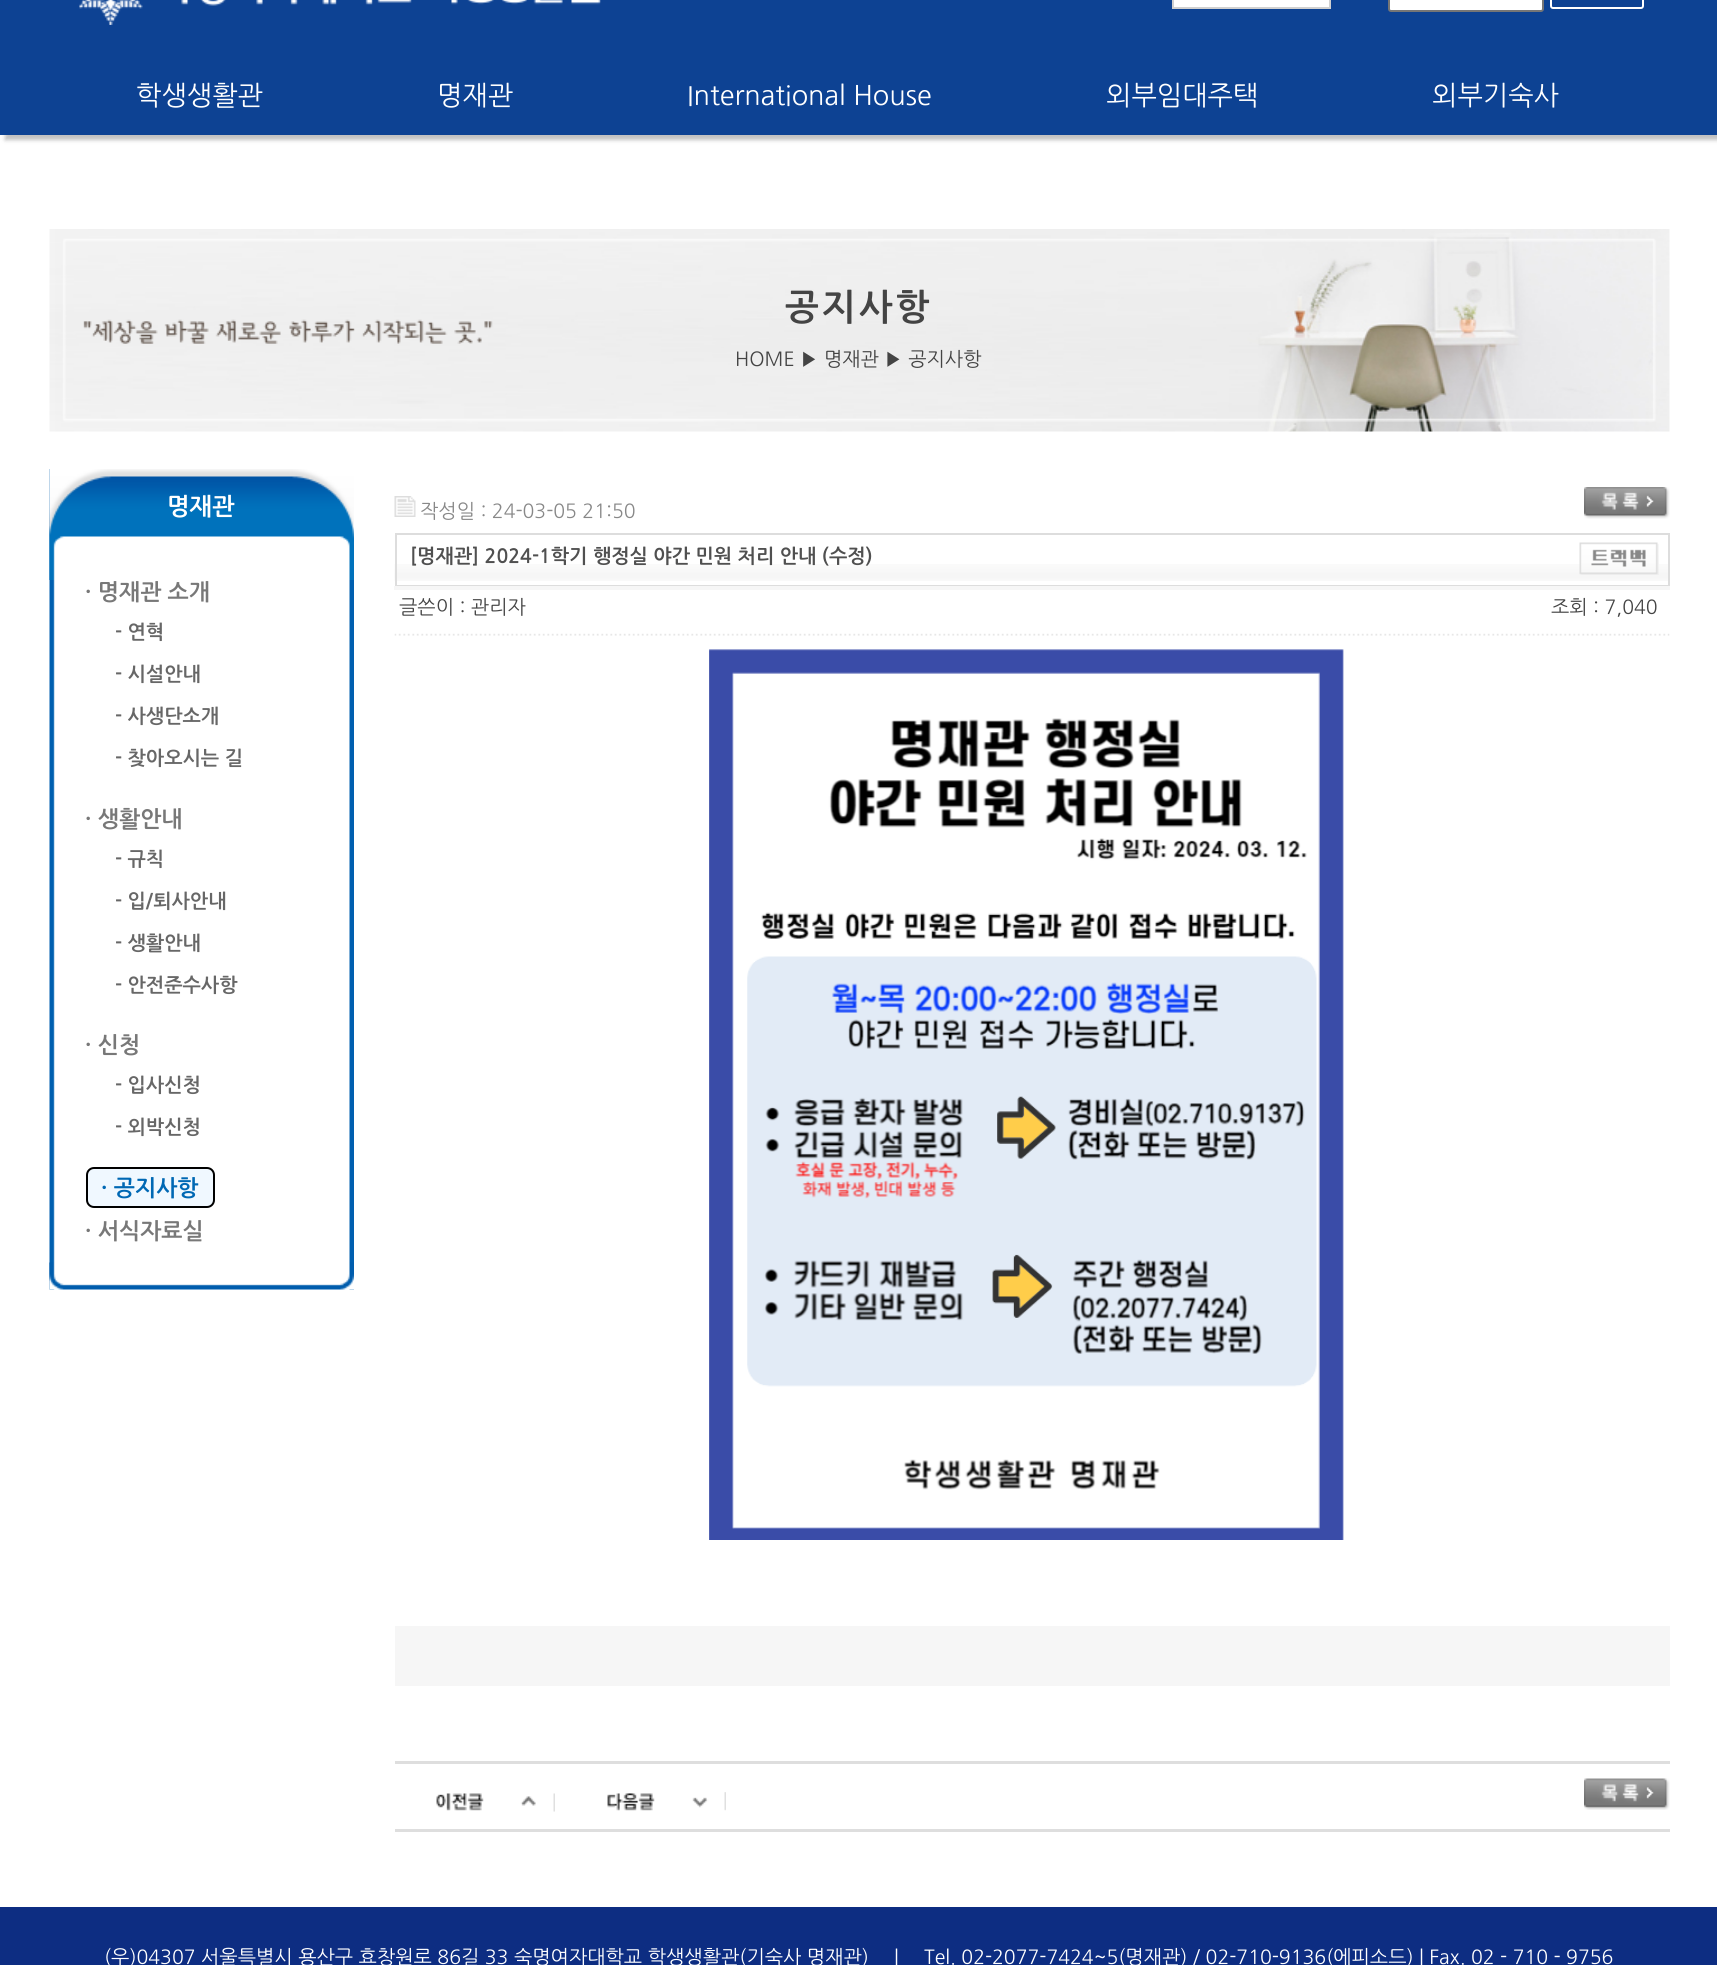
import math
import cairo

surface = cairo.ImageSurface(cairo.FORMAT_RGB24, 1717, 1965)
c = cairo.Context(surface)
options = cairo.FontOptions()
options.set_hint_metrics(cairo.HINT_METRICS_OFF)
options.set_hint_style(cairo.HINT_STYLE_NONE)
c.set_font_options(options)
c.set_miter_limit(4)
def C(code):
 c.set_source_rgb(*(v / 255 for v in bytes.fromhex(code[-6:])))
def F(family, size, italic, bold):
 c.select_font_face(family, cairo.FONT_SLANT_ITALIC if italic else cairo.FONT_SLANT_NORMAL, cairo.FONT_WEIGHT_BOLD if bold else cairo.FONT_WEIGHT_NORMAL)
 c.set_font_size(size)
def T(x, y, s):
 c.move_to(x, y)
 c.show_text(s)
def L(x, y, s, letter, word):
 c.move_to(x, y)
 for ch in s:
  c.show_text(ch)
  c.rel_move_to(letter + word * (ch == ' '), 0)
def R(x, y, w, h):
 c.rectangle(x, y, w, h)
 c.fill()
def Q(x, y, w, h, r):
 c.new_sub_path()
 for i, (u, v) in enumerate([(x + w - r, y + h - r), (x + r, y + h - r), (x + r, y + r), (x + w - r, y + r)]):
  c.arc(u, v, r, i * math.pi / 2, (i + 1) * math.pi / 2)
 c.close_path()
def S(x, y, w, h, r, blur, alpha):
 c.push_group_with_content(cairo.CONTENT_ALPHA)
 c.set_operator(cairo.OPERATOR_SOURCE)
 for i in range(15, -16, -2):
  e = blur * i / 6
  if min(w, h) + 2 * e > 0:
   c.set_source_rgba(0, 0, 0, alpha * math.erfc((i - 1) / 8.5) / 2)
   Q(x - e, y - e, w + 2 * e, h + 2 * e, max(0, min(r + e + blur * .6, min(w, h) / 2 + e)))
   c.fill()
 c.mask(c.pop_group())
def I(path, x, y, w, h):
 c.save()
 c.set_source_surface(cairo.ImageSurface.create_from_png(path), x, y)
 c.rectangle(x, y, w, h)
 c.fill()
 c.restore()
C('ffffff')
c.paint()
C('646464')
S(5,-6,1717,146,0,2,.4)
C('0d4293')
R(0,0,1717,135)
I('1.png',79,0,522,25)
C('ffffff')
c.rectangle(1173,-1,157,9)
c.fill_preserve()
C('d0d0d0')
c.stroke()
C('ffffff')
Q(1389,-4,154,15,2)
c.fill_preserve()
C('767676')
c.stroke()
Q(1551,-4,92,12,2)
C('ffffff')
c.stroke()
F('NanumGothic',27,0,0)
T(136,105,'학생생활관')
T(437,105,'명재관')
T(687,105,'International House')
T(1106,105,'외부임대주택')
T(1432,105,'외부기숙사')
I('2.png',49,229,1621,203)
F('NanumGothic',36,0,1)
C('444444')
L(785,320,'공지사항',3,0)
F('NanumGothic',19.5,0,0)
T(735,366,'HOME ▶ 명재관 ▶ 공지사항')
I('3.png',49,469,305,821)
I('4.png',49,469,305,111)
F('NanumGothic',24,0,1)
C('ffffff')
T(167,515,'명재관')
F('NanumGothic',22.5,0,1)
C('787878')
T(85,600,'· 명재관 소개')
F('NanumGothic',19.5,0,1)
C('676767')
T(115,639,'- 연혁')
T(115,681,'- 시설안내')
T(115,723,'- 사생단소개')
T(115,765,'- 찾아오시는 길')
F('NanumGothic',22.5,0,1)
C('787878')
T(85,827,'· 생활안내')
F('NanumGothic',19.5,0,1)
C('676767')
T(115,866,'- 규칙')
T(115,908,'- 입/퇴사안내')
T(115,950,'- 생활안내')
T(115,992,'- 안전준수사항')
F('NanumGothic',22.5,0,1)
C('787878')
T(85,1053,'· 신청')
F('NanumGothic',19.5,0,1)
C('676767')
T(115,1092,'- 입사신청')
T(115,1134,'- 외박신청')
C('f0f8ff')
Q(87,1168,127,39,7)
c.fill_preserve()
C('000000')
c.stroke()
F('NanumGothic',22.5,0,1)
C('0068b4')
T(101,1196,'· 공지사항')
C('787878')
T(85,1239,'· 서식자료실')
I('5.png',49,1262,305,28)
I('6.png',394,496,22,21)
F('NanumGothic',19.5,0,0)
C('888888')
T(420,518,'작성일 : 24-03-05 21:50')
I('7.png',1584,487,86,32)
I('8.png',394,564,1274,17)
c.rectangle(396,534,1273,52)
C('dddddd')
c.stroke()
F('NanumGothic',19.5,0,1)
C('505050')
T(410,563,'[명재관] 2024-1학기 행정실 야간 민원 처리 안내 (수정)')
I('9.png',1579,542,80,33)
C('f6f6f6')
R(394,586,1276,4)
I('10.png',394,633,1276,3)
F('NanumGothic',19.5,0,0)
C('444444')
T(399,614,'글쓴이 : 관리자')
T(1551,614,'조회 : 7,040')
I('11.png',709,649,635,891)
C('f6f6f6')
R(395,1626,1275,60)
C('dedede')
R(395,1761,1275,3)
I('12.png',436,1793,119,19)
I('13.png',607,1792,119,19)
I('14.png',1584,1778,86,32)
R(395,1829,1275,3)
C('0d2d82')
R(0,1907,1717,58)
C('ffffff')
T(104,1964,'(우)04307 서울특별시 용산구 효창원로 86길 33 숙명여자대학교 학생생활관(기숙사 명재관)')
T(894,1964,'|')
T(924,1964,'Tel. 02-2077-7424~5(명재관) / 02-710-9136(에피소드) | Fax. 02 - 710 - 9756')
surface.write_to_png('o.png')
